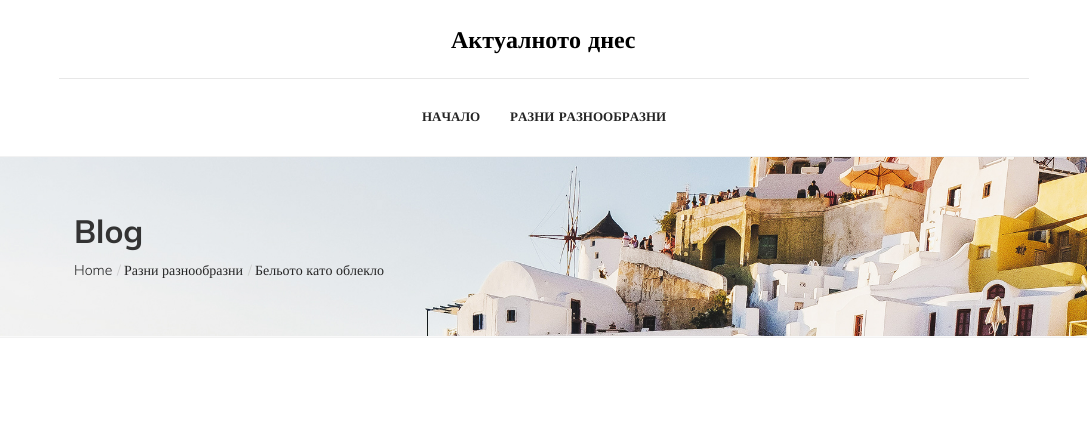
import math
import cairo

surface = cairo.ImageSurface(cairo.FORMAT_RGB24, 1087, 441)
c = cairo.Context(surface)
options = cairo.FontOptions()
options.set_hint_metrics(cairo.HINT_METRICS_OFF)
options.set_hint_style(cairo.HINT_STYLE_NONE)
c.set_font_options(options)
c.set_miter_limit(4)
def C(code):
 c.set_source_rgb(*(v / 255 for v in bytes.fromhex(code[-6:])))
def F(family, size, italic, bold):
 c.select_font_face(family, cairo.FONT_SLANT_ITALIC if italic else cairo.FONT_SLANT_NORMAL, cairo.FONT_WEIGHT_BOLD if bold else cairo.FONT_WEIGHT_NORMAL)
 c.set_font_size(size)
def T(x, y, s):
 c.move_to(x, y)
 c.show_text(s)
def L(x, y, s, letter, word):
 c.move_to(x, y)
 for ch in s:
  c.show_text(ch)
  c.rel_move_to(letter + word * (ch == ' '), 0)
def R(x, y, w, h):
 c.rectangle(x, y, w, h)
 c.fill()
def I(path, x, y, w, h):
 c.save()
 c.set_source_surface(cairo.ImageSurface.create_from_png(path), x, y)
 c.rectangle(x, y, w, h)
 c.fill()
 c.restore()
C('ffffff')
c.paint()
F('Liberation Serif',24,0,1)
C('000000')
L(451,48,'Актуалното днес',0,1)
C('e7e7e7')
R(59,78,970,1)
F('Liberation Serif',13,0,1)
C('252525')
T(422,121,'НАЧАЛО')
L(510,121,'РАЗНИ РАЗНООБРАЗНИ',0,1)
C('f2f2f2')
R(0,156,1087,1)
R(0,337,1087,1)
I('1.png',0,157,1087,179)
C('f9f9f9')
R(0,336,1087,1)
F('Muli',32,0,1)
C('333333')
T(74,243,'Blog')
F('Muli Light',14,0,0)
C('252525')
T(74,275,'Home')
C('cccccc')
T(117,275,'/')
F('Liberation Serif',14,0,0)
C('252525')
T(124,275,'Разни разнообразни')
F('Muli Light',14,0,0)
C('cccccc')
T(248,275,'/')
F('Liberation Serif',14,0,0)
C('252525')
T(255,275,'Бельото като облекло')
surface.write_to_png('o.png')
